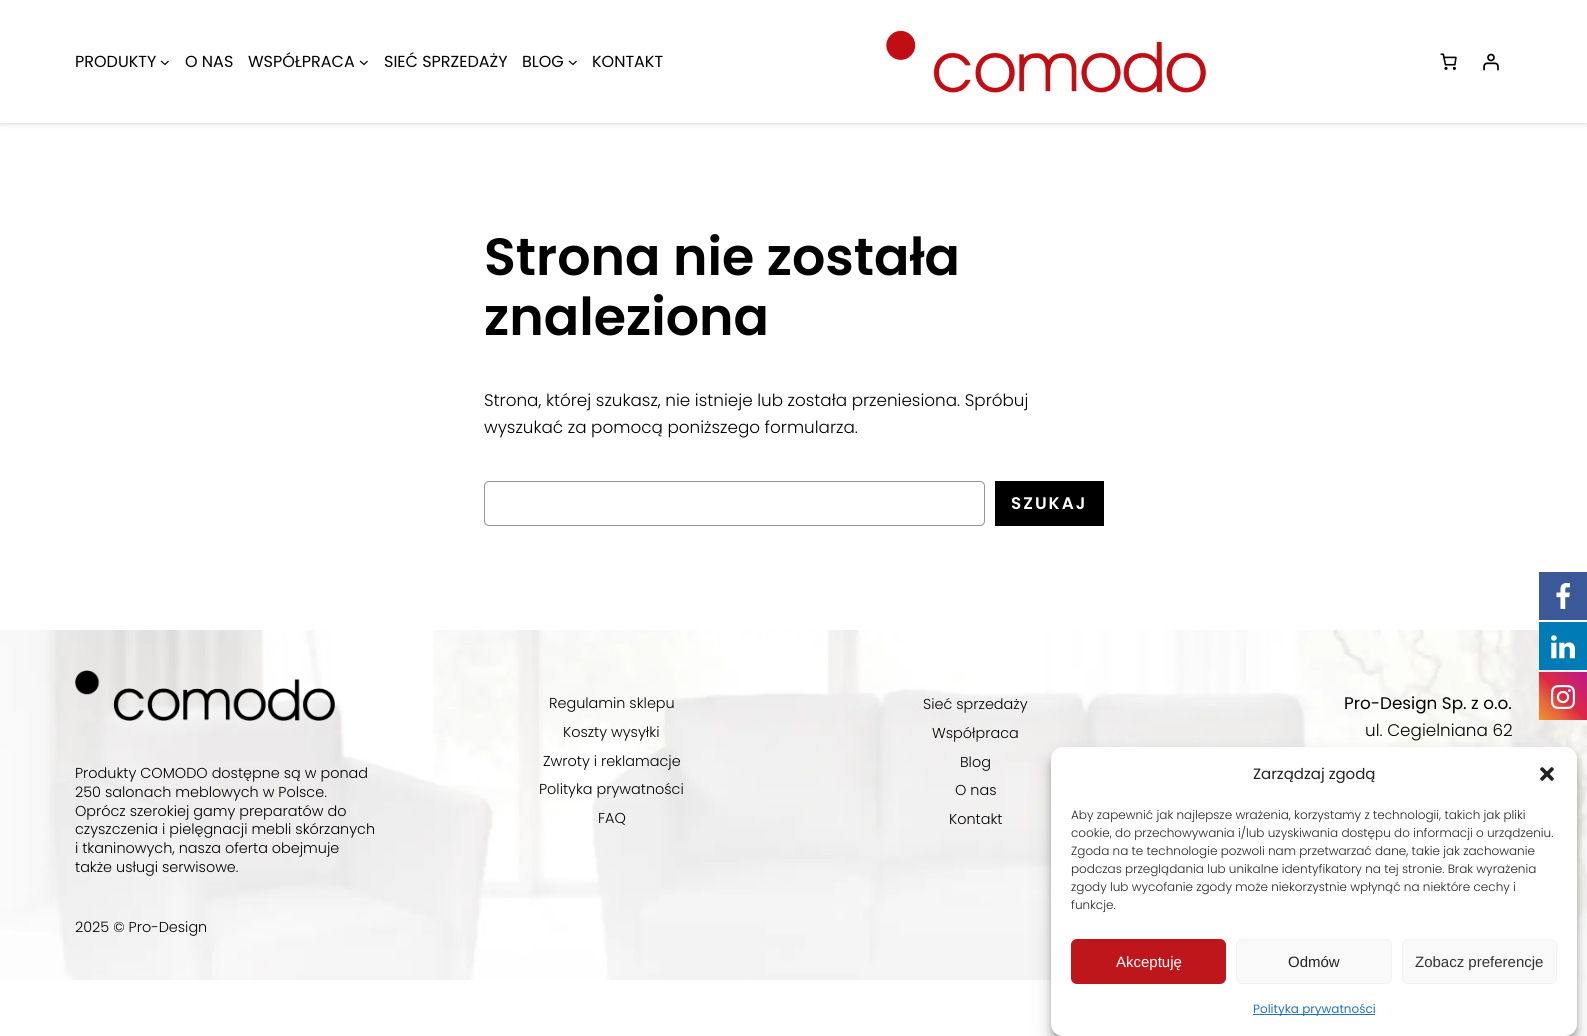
import math
import cairo

surface = cairo.ImageSurface(cairo.FORMAT_RGB24, 1587, 1036)
c = cairo.Context(surface)
options = cairo.FontOptions()
options.set_hint_metrics(cairo.HINT_METRICS_OFF)
options.set_hint_style(cairo.HINT_STYLE_NONE)
c.set_font_options(options)
c.set_miter_limit(4)
def C(code):
 c.set_source_rgb(*(v / 255 for v in bytes.fromhex(code[-6:])))
def F(family, size, italic, bold):
 c.select_font_face(family, cairo.FONT_SLANT_ITALIC if italic else cairo.FONT_SLANT_NORMAL, cairo.FONT_WEIGHT_BOLD if bold else cairo.FONT_WEIGHT_NORMAL)
 c.set_font_size(size)
def T(x, y, s):
 c.move_to(x, y)
 c.show_text(s)
def L(x, y, s, letter, word):
 c.move_to(x, y)
 for ch in s:
  c.show_text(ch)
  c.rel_move_to(letter + word * (ch == ' '), 0)
def R(x, y, w, h):
 c.rectangle(x, y, w, h)
 c.fill()
def Q(x, y, w, h, r):
 c.new_sub_path()
 for i, (u, v) in enumerate([(x + w - r, y + h - r), (x + r, y + h - r), (x + r, y + r), (x + w - r, y + r)]):
  c.arc(u, v, r, i * math.pi / 2, (i + 1) * math.pi / 2)
 c.close_path()
def S(x, y, w, h, r, blur, alpha):
 c.push_group_with_content(cairo.CONTENT_ALPHA)
 c.set_operator(cairo.OPERATOR_SOURCE)
 for i in range(15, -16, -2):
  e = blur * i / 6
  if min(w, h) + 2 * e > 0:
   c.set_source_rgba(0, 0, 0, alpha * math.erfc((i - 1) / 8.5) / 2)
   Q(x - e, y - e, w + 2 * e, h + 2 * e, max(0, min(r + e + blur * .6, min(w, h) / 2 + e)))
   c.fill()
 c.mask(c.pop_group())
def I(path, x, y, w, h):
 c.save()
 c.set_source_surface(cairo.ImageSurface.create_from_png(path), x, y)
 c.rectangle(x, y, w, h)
 c.fill()
 c.restore()
C('ffffff')
c.paint()
c.save()
c.rectangle(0,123,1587,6)
c.clip()
C('cccccc')
S(0,0,1587,123,0,3,1)
c.restore()
F('Poppins',16,0,0)
C('000000')
T(75,67,'PRODUKTY')
c.new_path()
c.move_to(161,61)
c.line_to(165,64.5)
c.line_to(168.5,61)
c.set_line_width(1.2)
c.stroke()
T(185,67,'O NAS')
T(248,67,'WSPÓŁPRACA')
c.new_path()
c.move_to(360,61)
c.line_to(364,64.5)
c.line_to(367.5,61)
c.stroke()
T(384,67,'SIEĆ SPRZEDAŻY')
T(522,67,'BLOG')
c.new_path()
c.move_to(569,61)
c.line_to(573,64.5)
c.line_to(576.5,61)
c.stroke()
T(592,67,'KONTAKT')
I('1.png',886,30,320,63)
I('2.png',1440,53,17,17)
I('3.png',1483,53,16,18)
F('Poppins SemiBold',52.25,0,0)
T(484,275,'Strona nie została')
T(484,335,'znaleziona')
F('Poppins Light',16.8,0,0)
T(484,406,'Strona, której szukasz, nie istnieje lub została przeniesiona. Spróbuj')
T(484,433,'wyszukać za pomocą poniższego formularza.')
Q(484.5,481.5,500,44,4.5)
C('949494')
c.set_line_width(1)
c.stroke()
C('000000')
R(995,481,109,45)
F('Poppins SemiBold',16.8,0,0)
C('ffffff')
L(1011,509,'SZUKAJ',2,0)
I('4.png',0,630,1587,350)
I('5.png',75,670,260,51)
F('Poppins Light',14.4,0,0)
C('000000')
T(75,778,'Produkty COMODO dostępne są w ponad')
T(75,797,'250 salonach meblowych w Polsce.')
T(75,816,'Oprócz szerokiej gamy preparatów do')
T(75,834,'czyszczenia i pielęgnacji mebli skórzanych')
T(75,853,'i tkaninowych, nasza oferta obejmuje')
T(75,872,'także usługi serwisowe.')
T(75,932,'2025 © Pro-Design')
T(549,708,'Regulamin sklepu')
T(563,737,'Koszty wysyłki')
T(543,766,'Zwroty i reklamacje')
T(539,794,'Polityka prywatności')
T(598,823,'FAQ')
T(923,709,'Sieć sprzedaży')
T(932,738,'Współpraca')
T(960,767,'Blog')
T(955,795,'O nas')
T(949,824,'Kontakt')
F('Poppins',16.8,0,0)
T(1344,709,'Pro-Design Sp. z o.o.')
F('Poppins Light',16.8,0,0)
T(1365,736,'ul. Cegielniana 62')
C('3b5998')
R(1539,572,48,48)
I('6.png',1556,583,14,26)
C('007bb6')
R(1539,622,48,48)
I('7.png',1551,635,24,24)
gradient = cairo.LinearGradient(1539,720,1587,672)
gradient.add_color_stop_rgba(0,0.941,0.58,0.2,1)
gradient.add_color_stop_rgba(.25,0.902,0.408,0.235,1)
gradient.add_color_stop_rgba(.5,0.863,0.153,0.263,1)
gradient.add_color_stop_rgba(.75,0.8,0.137,0.4,1)
gradient.add_color_stop_rgba(1,0.737,0.094,0.533,1)
c.set_source(gradient)
R(1539,672,48,48)
I('8.png',1551,685,24,24)
C('000000')
S(1051,753,526,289,12,3,.23)
S(1051,757,526,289,12,10,.19)
C('ffffff')
Q(1051,747,526,289,12)
c.fill()
F('Poppins',15,0,0)
C('222222')
T(1253,779,'Zarządzaj zgodą')
I('9.png',1540,767,14,14)
F('Poppins Light',12,0,0)
T(1071,819,'Aby zapewnić jak najlepsze wrażenia, korzystamy z technologii, takich jak pliki')
T(1071,837,'cookie, do przechowywania i/lub uzyskiwania dostępu do informacji o urządzeniu.')
T(1071,855,'Zgoda na te technologie pozwoli nam przetwarzać dane, takie jak zachowanie')
T(1071,873,'podczas przeglądania lub unikalne identyfikatory na tej stronie. Brak wyrażenia')
T(1071,891,'zgody lub wycofanie zgody może niekorzystnie wpłynąć na niektóre cechy i')
T(1071,909,'funkcje.')
C('bf161b')
Q(1071.5,939.5,154,44,5.5)
c.fill_preserve()
c.stroke()
F('Liberation Sans',15,0,0)
C('ffffff')
T(1116,967,'Akceptuję')
C('f9f9f9')
Q(1236.5,939.5,155,44,5.5)
c.fill_preserve()
C('f2f2f2')
c.stroke()
C('222222')
T(1288,967,'Odmów')
C('f9f9f9')
Q(1402.5,939.5,154,44,5.5)
c.fill_preserve()
C('f2f2f2')
c.stroke()
C('333333')
T(1415,967,'Zobacz preferencje')
C('1e73be')
R(1253,1014,122,1)
F('Poppins',12,0,0)
T(1253,1013,'Polityka prywatności')
surface.write_to_png('o.png')
